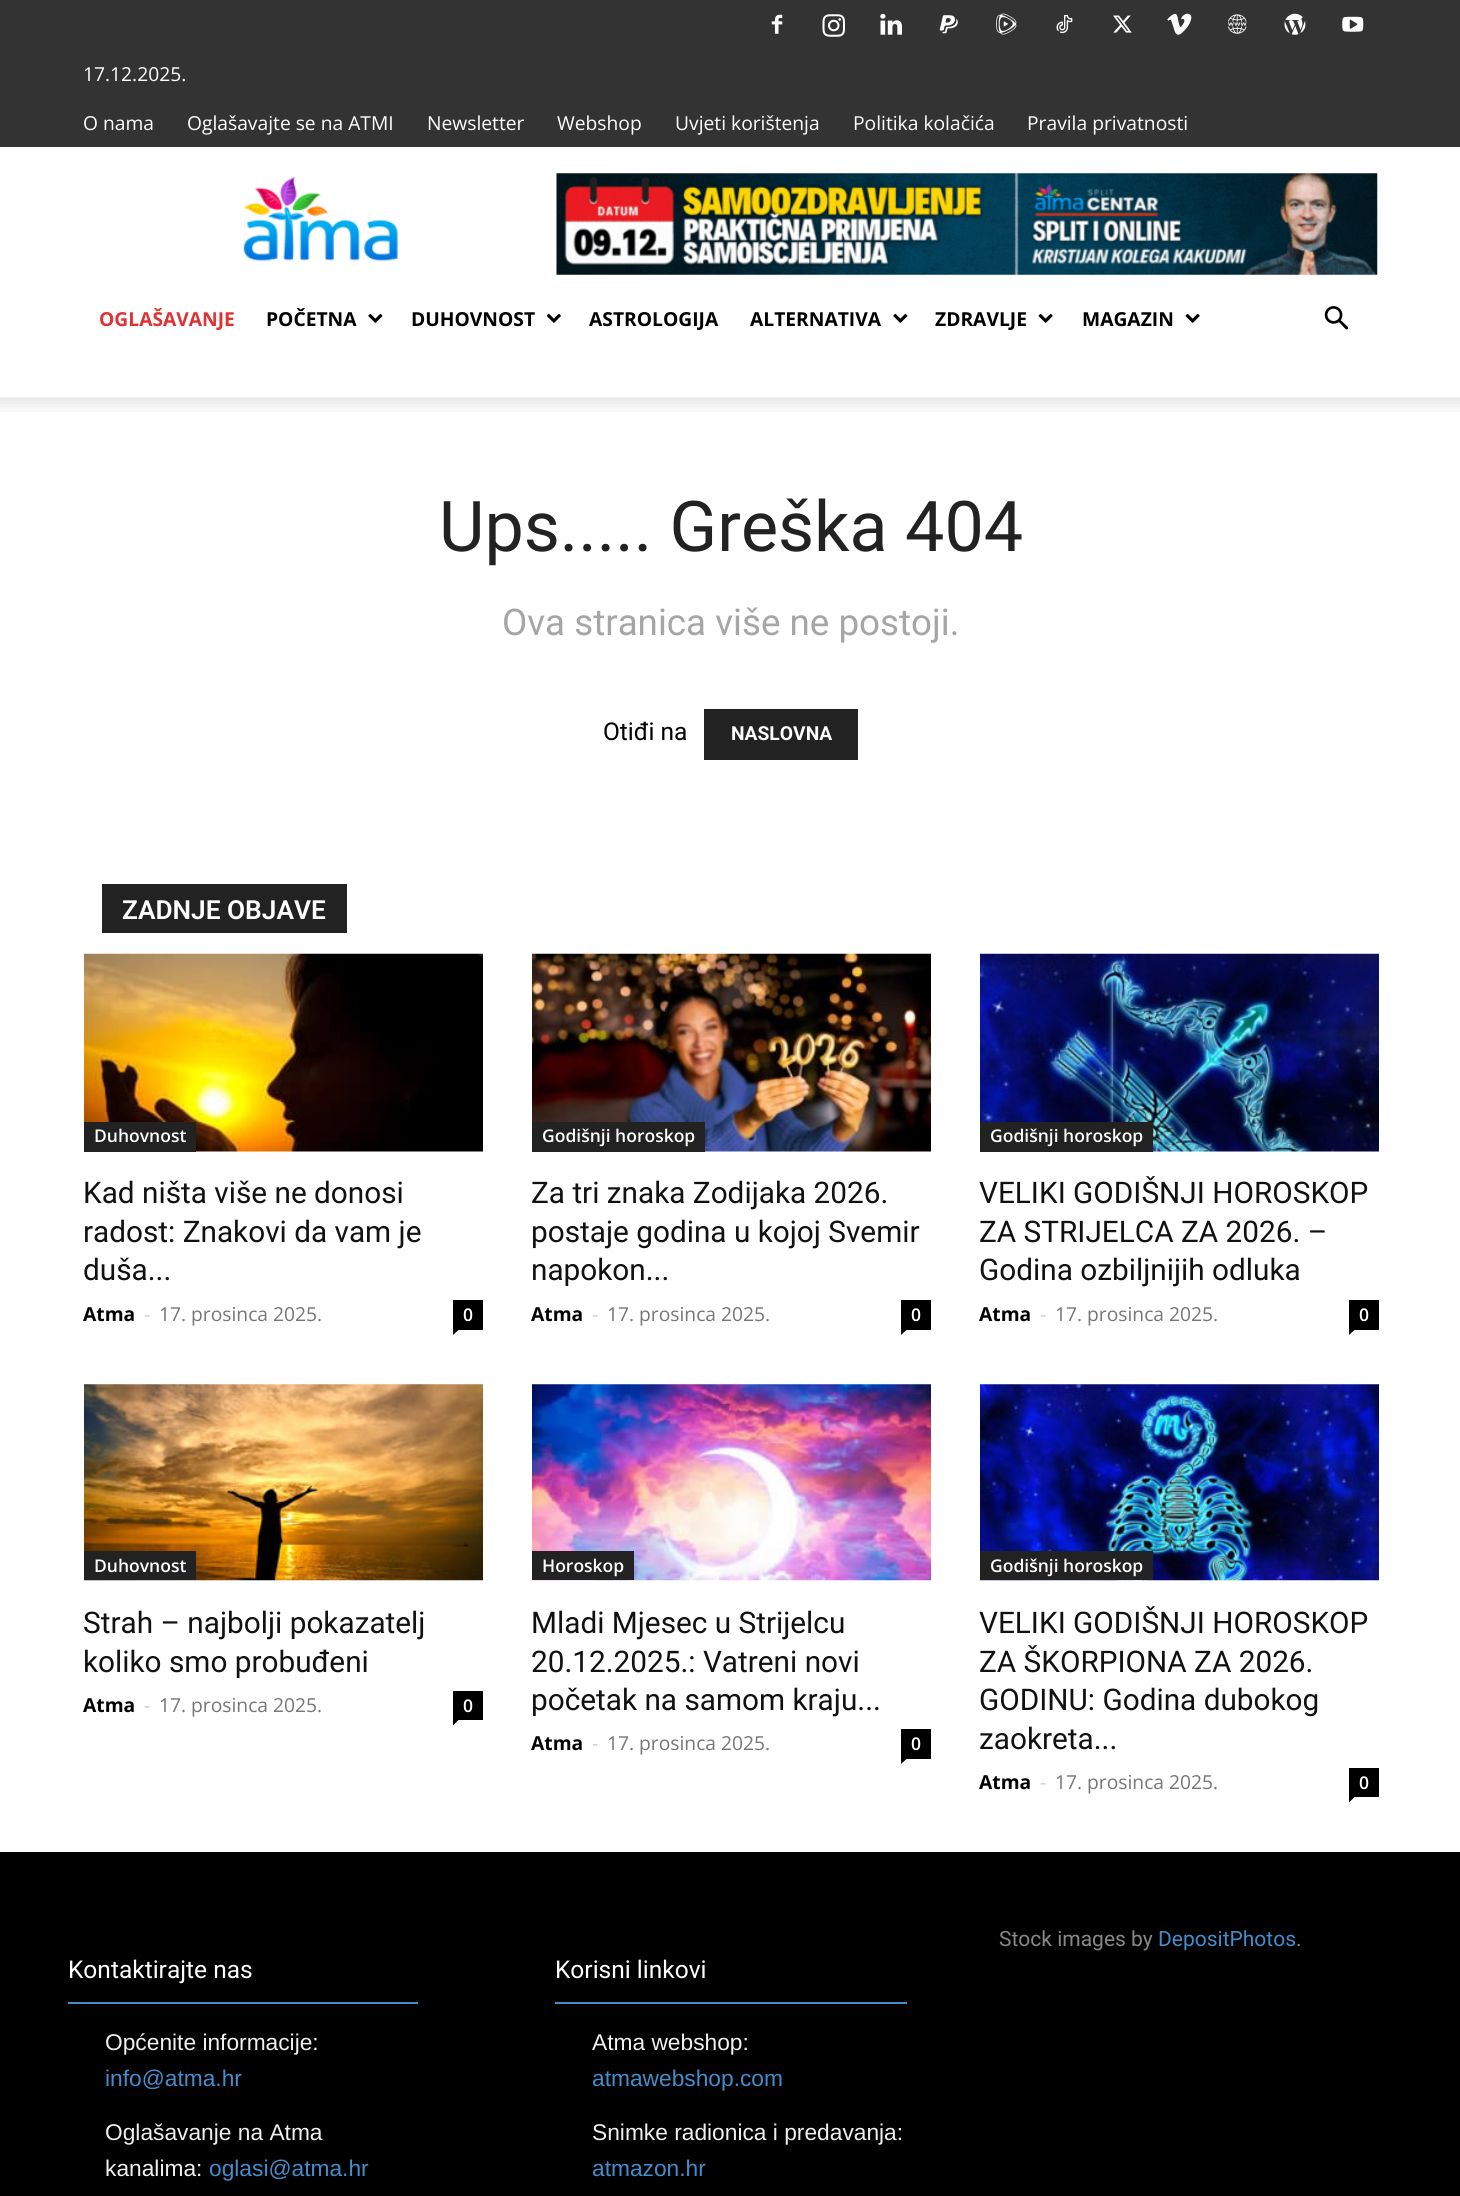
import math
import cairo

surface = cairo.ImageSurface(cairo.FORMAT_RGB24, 1460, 2196)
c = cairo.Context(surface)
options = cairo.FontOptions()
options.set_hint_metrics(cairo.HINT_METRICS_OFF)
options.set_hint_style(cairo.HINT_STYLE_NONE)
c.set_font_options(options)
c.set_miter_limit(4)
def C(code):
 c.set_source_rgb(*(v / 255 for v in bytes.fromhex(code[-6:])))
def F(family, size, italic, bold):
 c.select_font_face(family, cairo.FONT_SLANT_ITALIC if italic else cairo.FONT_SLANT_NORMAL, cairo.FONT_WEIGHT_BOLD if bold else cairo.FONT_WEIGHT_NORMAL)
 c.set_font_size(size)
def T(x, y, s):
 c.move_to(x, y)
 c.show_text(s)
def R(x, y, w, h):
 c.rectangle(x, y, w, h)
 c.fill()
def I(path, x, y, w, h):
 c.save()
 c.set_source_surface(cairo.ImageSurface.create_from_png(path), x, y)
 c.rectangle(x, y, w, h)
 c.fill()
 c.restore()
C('ffffff')
c.paint()
C('333333')
R(0,0,1460,147)
I('1.png',771,14,12,20)
I('2.png',822,14,23,23)
I('3.png',880,13,22,22)
I('4.png',939,15,19,19)
I('5.png',996,13,21,22)
I('6.png',1056,15,17,19)
I('7.png',1113,15,19,18)
I('8.png',1167,13,25,22)
I('9.png',1228,14,19,20)
I('10.png',1284,13,22,22)
I('11.png',1342,16,22,16)
F('Open Sans',19.25,0,0)
C('ffffff')
T(83,81,'17.12.2025.')
T(83,130,'O nama')
T(187,130,'Oglašavajte se na ATMI')
T(427,130,'Newsletter')
T(557,130,'Webshop')
T(675,130,'Uvjeti korištenja')
T(853,130,'Politika kolačića')
T(1027,130,'Pravila privatnosti')
I('12.png',243,176,155,86)
I('13.png',556,173,822,102)
F('Open Sans',19.25,0,1)
C('dd3333')
T(99,326,'OGLAŠAVANJE')
C('000000')
T(266,326,'POČETNA')
I('14.png',368,313,15,10)
T(411,326,'DUHOVNOST')
I('15.png',546,313,15,10)
T(589,326,'ASTROLOGIJA')
T(750,326,'ALTERNATIVA')
I('14.png',893,313,15,10)
T(935,326,'ZDRAVLJE')
I('16.png',1038,313,15,10)
T(1082,326,'MAGAZIN')
I('16.png',1185,313,15,10)
I('17.png',1324,306,25,24)
I('18.png',0,397,1460,15)
F('Roboto',70,0,0)
C('222222')
T(439,551,'Ups..... Greška 404')
F('Roboto',36.75,0,0)
C('a6a6a6')
T(502,635,'Ova stranica više ne postoji.')
F('Roboto',24.5,0,0)
C('000000')
T(603,740,'Otiđi na')
C('222222')
R(704,709,154,51)
F('Roboto',19.25,0,1)
C('ffffff')
T(731,740,'NASLOVNA')
C('222222')
R(102,884,245,49)
F('Roboto SemiBold',26.25,0,0)
C('ffffff')
T(122,919,'ZADNJE OBJAVE')
I('19.png',84,953,399,199)
C('222222')
R(84,1122,112,30)
F('Open Sans SemiBold',17.5,0,0)
C('ffffff')
T(94,1142,'Duhovnost')
F('Roboto',29.75,0,0)
C('111111')
T(83,1203,'Kad ništa više ne donosi')
T(83,1242,'radost: Znakovi da vam je')
T(83,1280,'duša...')
F('Open Sans',19.25,0,1)
C('000000')
T(83,1321,'Atma')
F('Open Sans',19.25,0,0)
C('cccccc')
T(144,1321,'-')
C('767676')
T(159,1321,'17. prosinca 2025.')
C('000000')
R(453,1300,30,30)
F('Open Sans SemiBold',17.5,0,0)
C('ffffff')
T(463,1321,'0')
C('000000')
c.new_path()
c.move_to(453,1330)
c.line_to(458.5,1330)
c.line_to(453,1335)
c.close_path()
c.fill()
I('20.png',532,953,399,199)
C('222222')
R(532,1122,173,30)
C('ffffff')
T(542,1142,'Godišnji horoskop')
F('Roboto',29.75,0,0)
C('111111')
T(531,1203,'Za tri znaka Zodijaka 2026.')
T(531,1242,'postaje godina u kojoj Svemir')
T(531,1280,'napokon...')
F('Open Sans',19.25,0,1)
C('000000')
T(531,1321,'Atma')
F('Open Sans',19.25,0,0)
C('cccccc')
T(592,1321,'-')
C('767676')
T(607,1321,'17. prosinca 2025.')
C('000000')
R(901,1300,30,30)
F('Open Sans SemiBold',17.5,0,0)
C('ffffff')
T(911,1321,'0')
C('000000')
c.new_path()
c.move_to(901,1330)
c.line_to(906.5,1330)
c.line_to(901,1335)
c.close_path()
c.fill()
I('21.png',980,953,399,199)
C('222222')
R(980,1122,173,30)
C('ffffff')
T(990,1142,'Godišnji horoskop')
F('Roboto',29.75,0,0)
C('111111')
T(979,1203,'VELIKI GODIŠNJI HOROSKOP')
T(979,1242,'ZA STRIJELCA ZA 2026. –')
T(979,1280,'Godina ozbiljnijih odluka')
F('Open Sans',19.25,0,1)
C('000000')
T(979,1321,'Atma')
F('Open Sans',19.25,0,0)
C('cccccc')
T(1040,1321,'-')
C('767676')
T(1055,1321,'17. prosinca 2025.')
C('000000')
R(1349,1300,30,30)
F('Open Sans SemiBold',17.5,0,0)
C('ffffff')
T(1359,1321,'0')
C('000000')
c.new_path()
c.move_to(1349,1330)
c.line_to(1354.5,1330)
c.line_to(1349,1335)
c.close_path()
c.fill()
I('22.png',84,1384,399,197)
C('222222')
R(84,1551,112,29)
C('ffffff')
T(94,1572,'Duhovnost')
F('Roboto',29.75,0,0)
C('111111')
T(83,1633,'Strah – najbolji pokazatelj')
T(83,1672,'koliko smo probuđeni')
F('Open Sans',19.25,0,1)
C('000000')
T(83,1712,'Atma')
F('Open Sans',19.25,0,0)
C('cccccc')
T(144,1712,'-')
C('767676')
T(159,1712,'17. prosinca 2025.')
C('000000')
R(453,1691,30,29)
F('Open Sans SemiBold',17.5,0,0)
C('ffffff')
T(463,1712,'0')
C('000000')
c.new_path()
c.move_to(453,1720)
c.line_to(458.5,1720)
c.line_to(453,1725.5)
c.close_path()
c.fill()
I('23.png',532,1384,399,197)
C('222222')
R(532,1551,102,29)
C('ffffff')
T(542,1572,'Horoskop')
F('Roboto',29.75,0,0)
C('111111')
T(531,1633,'Mladi Mjesec u Strijelcu')
T(531,1672,'20.12.2025.: Vatreni novi')
T(531,1710,'početak na samom kraju...')
F('Open Sans',19.25,0,1)
C('000000')
T(531,1750,'Atma')
F('Open Sans',19.25,0,0)
C('cccccc')
T(592,1750,'-')
C('767676')
T(607,1750,'17. prosinca 2025.')
C('000000')
R(901,1729,30,30)
F('Open Sans SemiBold',17.5,0,0)
C('ffffff')
T(911,1750,'0')
C('000000')
c.new_path()
c.move_to(901,1759)
c.line_to(906.5,1759)
c.line_to(901,1764)
c.close_path()
c.fill()
I('24.png',980,1384,399,197)
C('222222')
R(980,1551,173,29)
C('ffffff')
T(990,1572,'Godišnji horoskop')
F('Roboto',29.75,0,0)
C('111111')
T(979,1633,'VELIKI GODIŠNJI HOROSKOP')
T(979,1672,'ZA ŠKORPIONA ZA 2026.')
T(979,1710,'GODINU: Godina dubokog')
T(979,1749,'zaokreta...')
F('Open Sans',19.25,0,1)
C('000000')
T(979,1789,'Atma')
F('Open Sans',19.25,0,0)
C('cccccc')
T(1040,1789,'-')
C('767676')
T(1055,1789,'17. prosinca 2025.')
C('000000')
R(1349,1768,30,29)
F('Open Sans SemiBold',17.5,0,0)
C('ffffff')
T(1359,1789,'0')
C('000000')
c.new_path()
c.move_to(1349,1797)
c.line_to(1354.5,1797)
c.line_to(1349,1802.5)
c.close_path()
c.fill()
R(0,1852,1460,344)
F('Roboto',21,0,0)
C('888888')
T(999,1946,'Stock images by')
C('448ccb')
T(1158,1946,'DepositPhotos')
C('888888')
T(1296,1946,'.')
C('448ccb')
R(68,2002,350,2)
F('Roboto',24.5,0,0)
C('ffffff')
T(68,1978,'Kontaktirajte nas')
F('Liberation Sans',22.75,0,0)
C('f0f0f0')
T(105,2050,'Općenite informacije:')
C('448ccb')
T(105,2086,'info@atma.hr')
C('f0f0f0')
T(105,2140,'Oglašavanje na Atma')
T(105,2176,'kanalima:')
C('448ccb')
T(209,2176,'oglasi@atma.hr')
R(555,2002,352,2)
F('Roboto',24.5,0,0)
C('ffffff')
T(555,1978,'Korisni linkovi')
F('Liberation Sans',22.75,0,0)
C('f0f0f0')
T(592,2050,'Atma webshop:')
C('448ccb')
T(592,2086,'atmawebshop.com')
C('f0f0f0')
T(592,2140,'Snimke radionica i predavanja:')
C('448ccb')
T(592,2176,'atmazon.hr')
surface.write_to_png('o.png')
